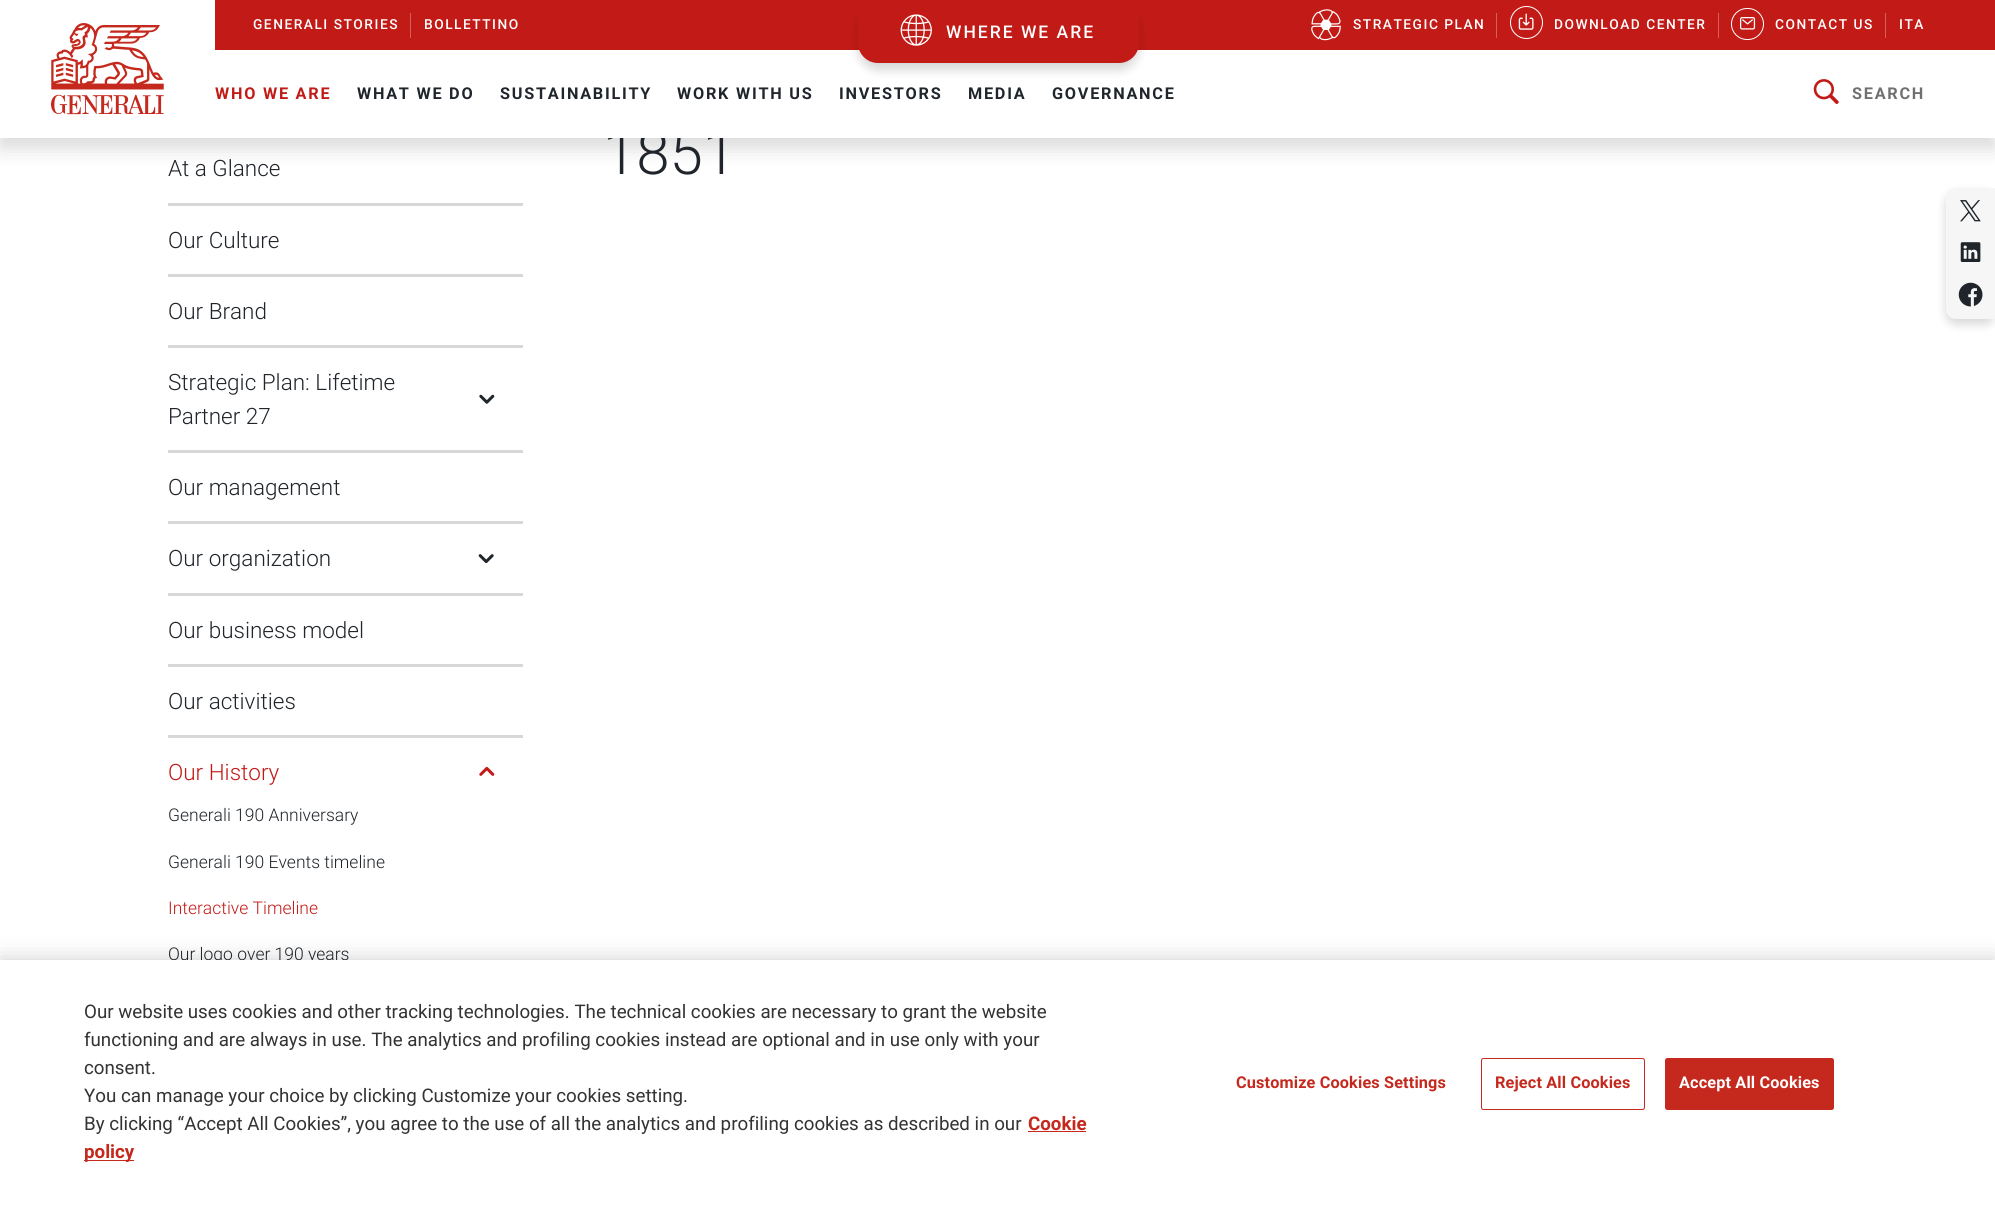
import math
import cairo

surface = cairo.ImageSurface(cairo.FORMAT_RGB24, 1995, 1210)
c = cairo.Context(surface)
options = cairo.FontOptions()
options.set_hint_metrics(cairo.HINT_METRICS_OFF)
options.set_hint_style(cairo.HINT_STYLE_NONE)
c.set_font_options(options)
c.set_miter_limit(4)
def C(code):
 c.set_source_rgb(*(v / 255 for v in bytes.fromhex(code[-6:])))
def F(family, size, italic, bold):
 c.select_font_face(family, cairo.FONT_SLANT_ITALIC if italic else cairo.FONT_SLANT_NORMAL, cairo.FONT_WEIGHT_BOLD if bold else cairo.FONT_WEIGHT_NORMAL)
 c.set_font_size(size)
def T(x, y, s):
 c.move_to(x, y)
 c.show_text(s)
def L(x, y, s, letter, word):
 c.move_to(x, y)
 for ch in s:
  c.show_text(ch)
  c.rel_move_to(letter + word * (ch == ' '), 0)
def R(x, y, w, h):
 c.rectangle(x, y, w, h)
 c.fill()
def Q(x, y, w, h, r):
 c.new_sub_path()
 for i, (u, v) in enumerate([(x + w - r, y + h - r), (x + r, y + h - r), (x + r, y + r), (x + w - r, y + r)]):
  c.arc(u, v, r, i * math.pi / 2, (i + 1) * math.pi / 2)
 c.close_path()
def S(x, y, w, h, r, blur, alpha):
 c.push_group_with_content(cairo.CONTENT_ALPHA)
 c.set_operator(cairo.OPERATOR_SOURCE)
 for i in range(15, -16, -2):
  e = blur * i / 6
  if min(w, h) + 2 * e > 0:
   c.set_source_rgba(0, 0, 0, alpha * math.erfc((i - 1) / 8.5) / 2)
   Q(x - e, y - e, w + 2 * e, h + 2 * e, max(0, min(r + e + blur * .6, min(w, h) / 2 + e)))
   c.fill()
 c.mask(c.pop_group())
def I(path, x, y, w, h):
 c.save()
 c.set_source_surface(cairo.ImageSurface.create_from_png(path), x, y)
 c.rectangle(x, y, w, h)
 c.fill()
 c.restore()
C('ffffff')
c.paint()
C('000000')
S(0,10,1995,138,0,10,.15)
F('Roboto Light',60,0,0)
C('20252b')
T(603,174,'1851')
C('ffffff')
R(0,0,1995,138)
I('1.png',51,23,113,92)
C('c21b17')
R(215,0,1780,50)
F('Roboto Medium',13.75,0,0)
C('ffffff')
L(253,29,'GENERALI STORIES',1.5,0)
C('d45f5d')
R(410,13,1,25)
C('ffffff')
L(424,29,'BOLLETTINO',1.5,0)
I('2.png',1311,9,30,32)
L(1353,29,'STRATEGIC PLAN',1.5,0)
C('d45f5d')
R(1496,13,1,25)
c.new_path()
c.arc(1526.5,22.5,16,0,2 * math.pi)
C('ffffff')
c.set_line_width(1)
c.stroke()
I('3.png',1518,13,16,17)
L(1554,29,'DOWNLOAD CENTER',1.5,0)
C('d45f5d')
R(1718,13,1,25)
Q(1731.5,8.5,32,31,15.5)
C('ffffff')
c.stroke()
I('4.png',1740,17,16,13)
L(1775,29,'CONTACT US',1.5,0)
C('d45f5d')
R(1885,13,1,25)
C('ffffff')
L(1899,29,'ITA',1.5,0)
F('Roboto',16.25,0,1)
C('c21b17')
L(215,99,'WHO WE ARE',1.75,0)
C('20252b')
L(357,99,'WHAT WE DO',1.75,0)
L(500,99,'SUSTAINABILITY',1.75,0)
L(677,99,'WORK WITH US',1.75,0)
L(839,99,'INVESTORS',1.75,0)
L(968,99,'MEDIA',1.75,0)
L(1052,99,'GOVERNANCE',1.75,0)
I('5.png',1813,79,26,25)
C('707070')
L(1852,99,'SEARCH',1.75,0)
C('000000')
S(858,8,281,62,20,5,.16)
C('c21b17')
c.new_path()
c.move_to(858,0)
c.line_to(1139,0)
c.line_to(1139,43)
c.curve_to(1139,54,1130,63,1119,63)
c.line_to(878,63)
c.curve_to(867,63,858,54,858,43)
c.close_path()
c.fill()
I('6.png',900,14,32,32)
F('Roboto Medium',17.5,0,0)
C('ffffff')
L(946,38,'WHERE WE ARE',2,0)
C('d8d8d8')
R(168,203,355,3)
F('Roboto Light',22.5,0,0)
C('20252b')
T(168,176,'At a Glance')
C('d8d8d8')
R(168,274,355,3)
C('20252b')
T(168,248,'Our Culture')
C('d8d8d8')
R(168,345,355,3)
C('20252b')
T(168,319,'Our Brand')
C('d8d8d8')
R(168,450,355,3)
C('20252b')
T(168,390,'Strategic Plan: Lifetime')
T(168,424,'Partner 27')
I('7.png',479,394,16,10)
C('d8d8d8')
R(168,521,355,3)
C('20252b')
T(168,495,'Our management')
C('d8d8d8')
R(168,593,355,3)
C('20252b')
T(168,566,'Our organization')
I('8.png',478,554,16,10)
C('d8d8d8')
R(168,664,355,3)
C('20252b')
T(168,638,'Our business model')
C('d8d8d8')
R(168,735,355,3)
C('20252b')
T(168,709,'Our activities')
C('c21b17')
T(168,780,'Our History')
I('9.png',479,766,16,10)
F('Roboto Light',17.5,0,0)
C('20252b')
T(168,821,'Generali 190 Anniversary')
T(168,868,'Generali 190 Events timeline')
C('c21b17')
T(168,914,'Interactive Timeline')
C('20252b')
T(168,960,'Our logo over 190 years')
C('000000')
S(1946,193,49,131,10,5,.16)
C('f6f6f6')
c.new_path()
c.move_to(1956,188)
c.line_to(1995,188)
c.line_to(1995,319)
c.line_to(1956,319)
c.curve_to(1950.5,319,1946,314.5,1946,309)
c.line_to(1946,198)
c.curve_to(1946,192.5,1950.5,188,1956,188)
c.close_path()
c.fill()
I('10.png',1960,200,21,22)
I('11.png',1960,242,21,20)
I('12.png',1958,282,25,25)
C('000000')
S(0,960,1995,250,0,11,.2)
C('ffffff')
R(0,960,1995,250)
F('Roboto',18.75,0,0)
C('333333')
T(84,1018,'Our website uses cookies and other tracking technologies. The technical cookies are necessary to grant the website')
T(84,1046,'functioning and are always in use. The analytics and profiling cookies instead are optional and in use only with your')
T(84,1074,'consent.')
T(84,1102,'You can manage your choice by clicking Customize your cookies setting.')
T(84,1130,'By clicking “Accept All Cookies”, you agree to the use of all the analytics and profiling cookies as described in our')
F('Roboto',18.75,0,1)
C('c5281c')
T(1028,1130,'Cookie')
R(1028,1131,58,1)
R(84,1160,50,1)
T(84,1158,'policy')
F('Roboto',16.25,0,1)
L(1236,1088,'Customize Cookies Settings',.15,0)
Q(1481.5,1058.5,163,51,2)
c.stroke()
L(1495,1088,'Reject All Cookies',.15,0)
Q(1665.5,1058.5,168,51,2)
c.fill_preserve()
c.stroke()
C('ffffff')
L(1679,1088,'Accept All Cookies',.15,0)
surface.write_to_png('o.png')
